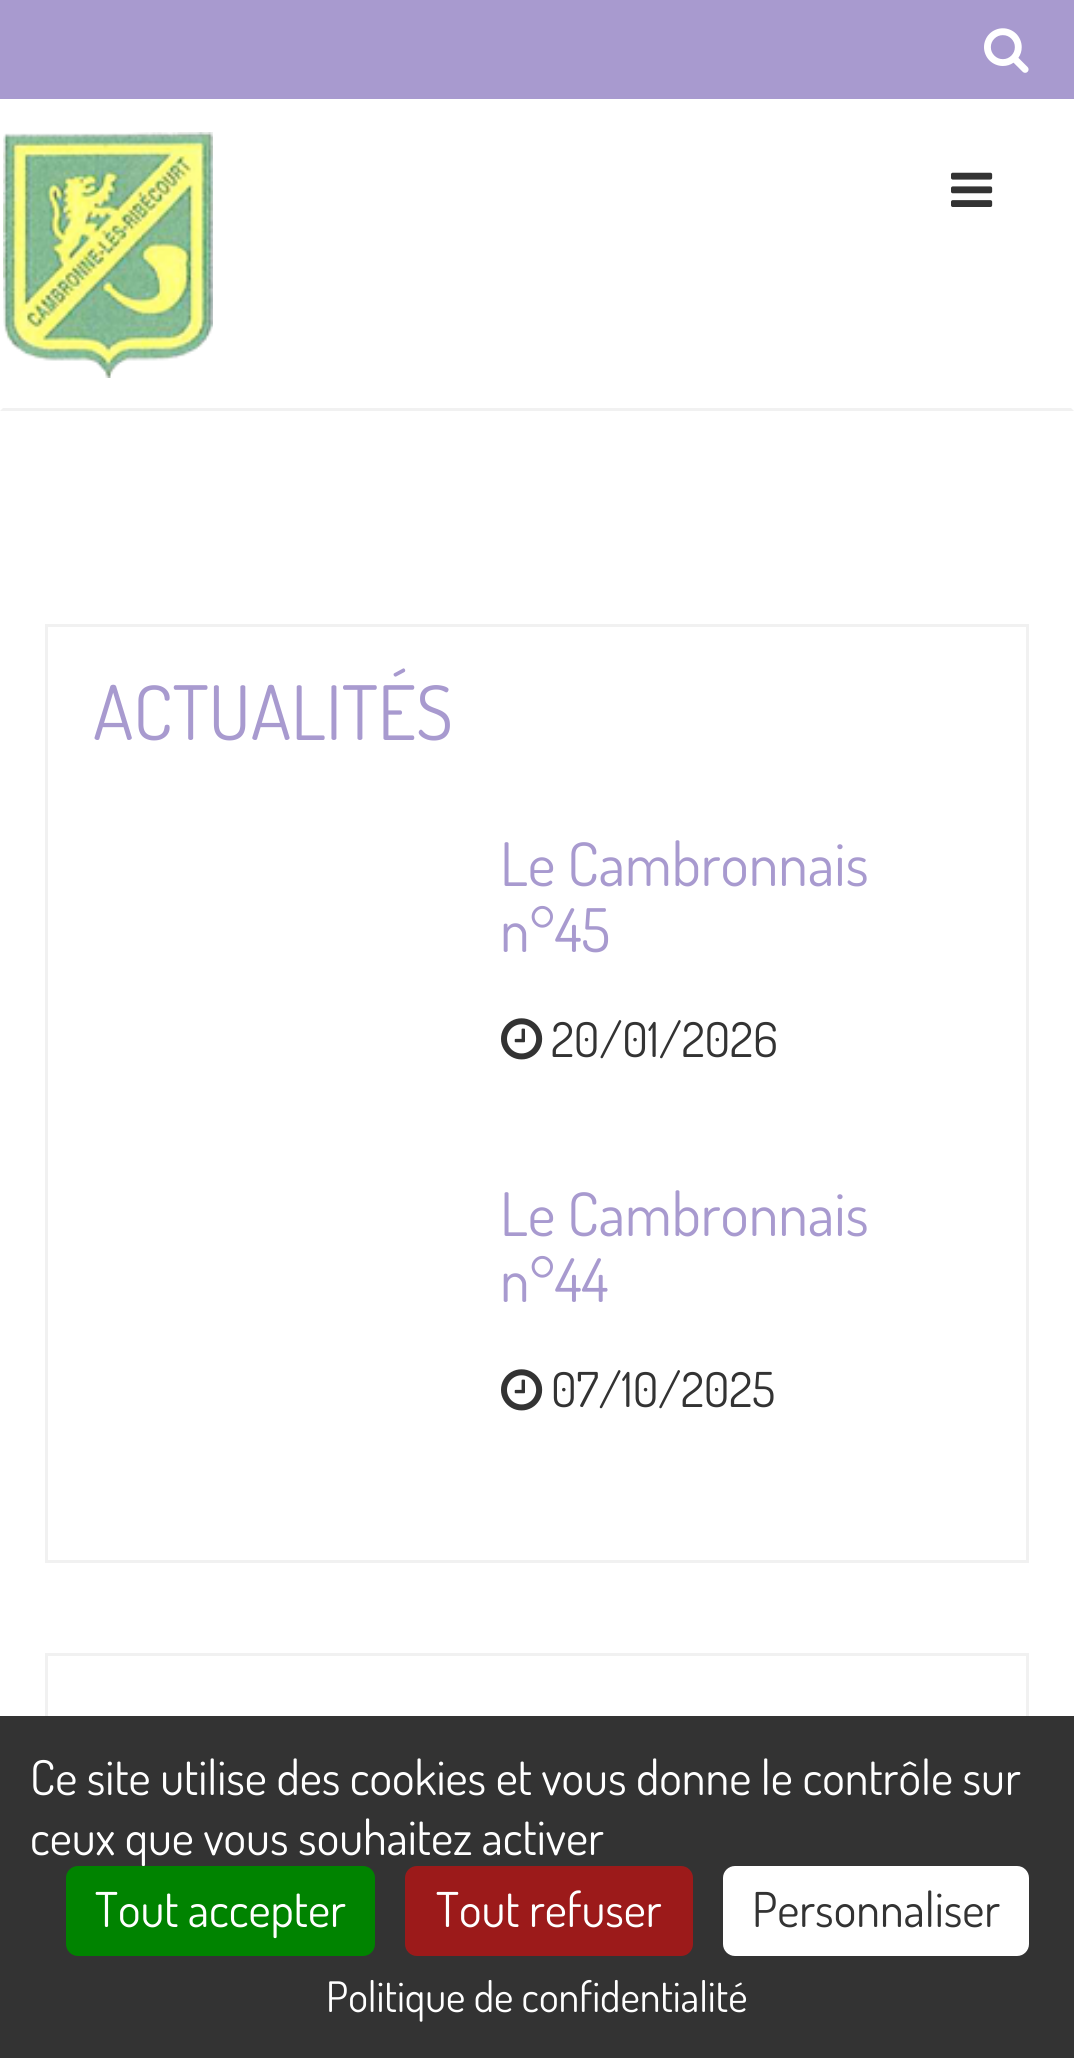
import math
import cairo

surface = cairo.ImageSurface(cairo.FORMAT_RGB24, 1074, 2058)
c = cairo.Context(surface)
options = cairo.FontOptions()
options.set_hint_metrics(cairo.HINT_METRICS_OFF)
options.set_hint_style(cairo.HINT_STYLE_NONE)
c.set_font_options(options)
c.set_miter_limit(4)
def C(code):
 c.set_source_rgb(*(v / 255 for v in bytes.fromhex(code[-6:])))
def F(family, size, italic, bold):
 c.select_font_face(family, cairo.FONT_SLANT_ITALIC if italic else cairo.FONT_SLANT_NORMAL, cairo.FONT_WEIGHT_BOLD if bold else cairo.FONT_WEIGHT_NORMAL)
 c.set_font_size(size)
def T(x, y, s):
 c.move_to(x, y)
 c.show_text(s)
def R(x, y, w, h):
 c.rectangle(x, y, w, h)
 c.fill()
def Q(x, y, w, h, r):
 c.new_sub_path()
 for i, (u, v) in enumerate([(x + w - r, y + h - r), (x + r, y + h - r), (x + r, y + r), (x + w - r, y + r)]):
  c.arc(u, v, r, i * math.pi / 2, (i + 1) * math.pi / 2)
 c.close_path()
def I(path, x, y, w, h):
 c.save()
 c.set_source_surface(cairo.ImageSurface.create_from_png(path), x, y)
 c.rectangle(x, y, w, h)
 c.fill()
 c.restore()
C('ffffff')
c.paint()
C('a89acf')
R(0,0,1074,99)
I('1.png',984,28,45,45)
C('f1f1f1')
c.new_path()
c.move_to(1074,411)
c.line_to(0,411)
c.line_to(3,408)
c.line_to(1071,408)
c.close_path()
c.fill()
I('2.png',3,132,210,246)
I('3.png',951,172,42,35)
c.rectangle(46.5,625.5,981,936)
c.set_line_width(3)
c.stroke()
F('Dosis',75,0,0)
C('a89acf')
T(93,740,'ACTUALITÉS')
F('Dosis',60,0,0)
T(500,886,'Le Cambronnais')
T(500,952,'n°45')
I('4.png',501,1018,42,42)
F('Dosis',48,0,0)
C('333333')
T(551,1057,'20/01/2026')
F('Dosis',60,0,0)
C('a89acf')
T(500,1236,'Le Cambronnais')
T(500,1302,'n°44')
I('4.png',501,1369,42,42)
F('Dosis',48,0,0)
C('333333')
T(551,1407,'07/10/2025')
c.rectangle(46.5,1654.5,981,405)
C('f1f1f1')
c.stroke()
C('333333')
R(0,1716,1074,342)
C('ffffff')
T(30,1795,'Ce site utilise des cookies et vous donne le contrôle sur')
T(30,1855,'ceux que vous souhaitez activer')
C('008300')
Q(66,1866,309,90,12)
c.fill()
C('ffffff')
T(95,1927,'Tout accepter')
C('9c1a1a')
Q(405,1866,288,90,12)
c.fill()
C('ffffff')
T(436,1927,'Tout refuser')
Q(723,1866,306,90,12)
c.fill()
C('333333')
T(752,1927,'Personnaliser')
F('Dosis',42,0,0)
C('ffffff')
T(326,2012,'Politique de confidentialité')
surface.write_to_png('o.png')
